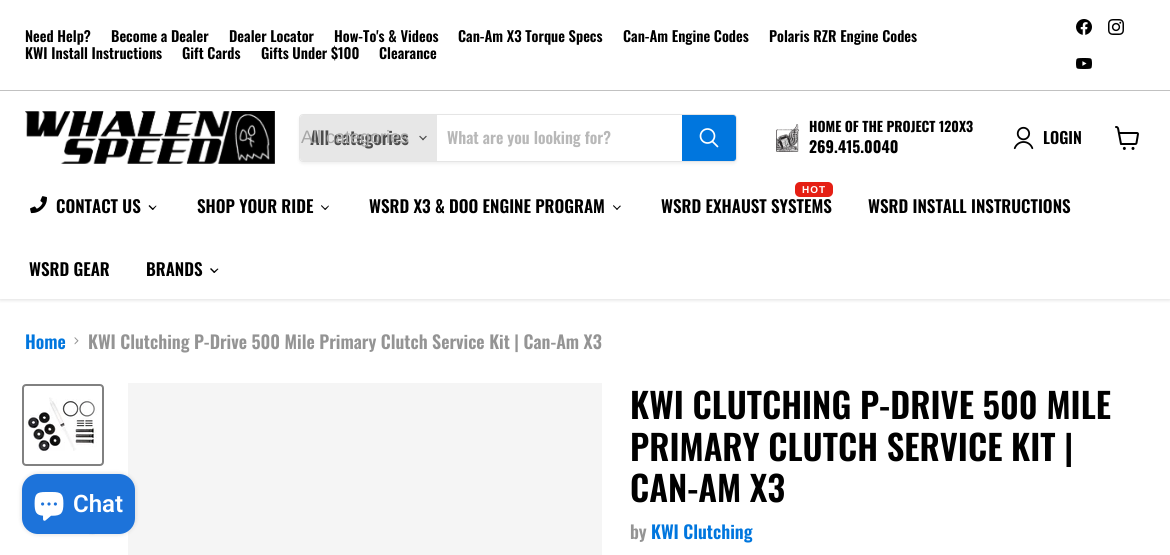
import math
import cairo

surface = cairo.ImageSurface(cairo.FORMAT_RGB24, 1170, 555)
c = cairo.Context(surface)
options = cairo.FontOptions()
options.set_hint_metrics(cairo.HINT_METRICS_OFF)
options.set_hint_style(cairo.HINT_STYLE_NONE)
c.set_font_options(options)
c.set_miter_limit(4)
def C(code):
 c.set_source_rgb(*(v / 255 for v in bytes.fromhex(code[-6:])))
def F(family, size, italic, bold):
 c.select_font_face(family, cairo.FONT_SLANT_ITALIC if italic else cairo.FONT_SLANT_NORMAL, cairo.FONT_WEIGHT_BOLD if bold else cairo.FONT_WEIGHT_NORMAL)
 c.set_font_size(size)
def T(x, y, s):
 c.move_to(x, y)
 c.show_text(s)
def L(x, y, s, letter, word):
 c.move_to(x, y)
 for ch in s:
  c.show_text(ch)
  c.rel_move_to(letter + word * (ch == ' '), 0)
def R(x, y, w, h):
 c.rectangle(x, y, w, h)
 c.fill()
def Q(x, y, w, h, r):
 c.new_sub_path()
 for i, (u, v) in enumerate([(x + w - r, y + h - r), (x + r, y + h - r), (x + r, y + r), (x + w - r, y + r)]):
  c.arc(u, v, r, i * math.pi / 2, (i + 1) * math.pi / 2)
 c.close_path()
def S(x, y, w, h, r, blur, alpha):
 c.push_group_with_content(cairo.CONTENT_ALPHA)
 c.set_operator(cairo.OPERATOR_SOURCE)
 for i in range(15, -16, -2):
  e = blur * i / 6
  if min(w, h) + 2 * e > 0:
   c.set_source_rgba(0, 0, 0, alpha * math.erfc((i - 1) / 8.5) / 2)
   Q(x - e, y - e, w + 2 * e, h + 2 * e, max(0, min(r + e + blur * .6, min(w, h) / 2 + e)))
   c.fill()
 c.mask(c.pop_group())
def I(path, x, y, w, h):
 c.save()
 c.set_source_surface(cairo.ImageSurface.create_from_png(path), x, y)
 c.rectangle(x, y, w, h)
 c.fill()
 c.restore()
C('ffffff')
c.paint()
c.save()
c.rectangle(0,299,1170,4)
c.clip()
C('808080')
S(0,92,1170,208,0,2,.25)
c.restore()
C('ffffff')
R(2,89,1166,1)
C('c1c1c1')
R(0,90,1170,1)
F('Oswald SemiBold',14.6,0,0)
C('000000')
T(25,42,'Need Help?')
T(111,42,'Become a Dealer')
T(229,42,'Dealer Locator')
T(334,42,'How-To\'s & Videos')
T(458,42,'Can-Am X3 Torque Specs')
T(623,42,'Can-Am Engine Codes')
T(769,42,'Polaris RZR Engine Codes')
T(25,59,'KWI Install Instructions')
T(182,59,'Gift Cards')
T(261,59,'Gifts Under $100')
T(379,59,'Clearance')
I('1.png',1076,19,16,16)
I('2.png',1108,19,16,16)
I('3.png',1076,58,16,11)
I('4.png',25,111,250,53)
c.save()
c.set_fill_rule(cairo.FILL_RULE_EVEN_ODD)
c.new_path()
c.move_to(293,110)
c.line_to(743,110)
c.line_to(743,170)
c.line_to(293,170)
c.close_path()
c.move_to(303,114)
c.line_to(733,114)
c.curve_to(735,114,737,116,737,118)
c.line_to(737,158)
c.curve_to(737,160,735,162,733,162)
c.line_to(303,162)
c.curve_to(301,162,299,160,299,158)
c.line_to(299,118)
c.curve_to(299,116,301,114,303,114)
c.close_path()
c.clip()
C('808080')
S(299,116,438,48,4,1.5,.11)
c.restore()
Q(299.5,114.5,437,47,3.5)
c.set_source_rgba(0.502,0.502,0.502,0.2)
c.set_line_width(1)
c.stroke()
C('e7e7e7')
c.new_path()
c.move_to(303,115)
c.line_to(437,115)
c.line_to(437,161)
c.line_to(303,161)
c.curve_to(301.5,161,300,159.5,300,158)
c.line_to(300,118)
c.curve_to(300,116.5,301.5,115,303,115)
c.close_path()
c.fill()
F('Oswald SemiBold',18,0,0)
C('4d4d4d')
T(310,145,'All categories')
F('Liberation Sans',18,0,0)
C('a7a7a7')
T(301,143,'All categories')
I('5.png',419,135,8,6)
F('Oswald SemiBold',16,0,0)
C('b8b8b8')
T(447,144,'What are you looking for?')
C('0076de')
c.new_path()
c.move_to(682.5,115.5)
c.line_to(733,115.5)
c.curve_to(734.5,115.5,735.5,116.5,735.5,118)
c.line_to(735.5,158)
c.curve_to(735.5,159.5,734.5,160.5,733,160.5)
c.line_to(682.5,160.5)
c.close_path()
c.fill_preserve()
c.stroke()
c.new_path()
c.move_to(717.5,146.5)
c.line_to(712.5,141.5)
C('ffffff')
c.set_line_width(1.7)
c.set_line_cap(cairo.LINE_CAP_ROUND)
c.stroke()
c.arc(707.5,136,7,0,2 * math.pi)
c.set_line_cap(cairo.LINE_CAP_BUTT)
c.stroke()
I('6.png',776,124,23,28)
F('Oswald',13.75,0,1)
C('000000')
T(809,132,'HOME OF THE PROJECT 120X3')
F('Oswald',15.75,0,1)
T(809,153,'269.415.0040')
I('7.png',1013,126,21,24)
F('Oswald SemiBold',16,0,0)
T(1043,144,'LOGIN')
I('8.png',1115,126,24,24)
I('9.png',30,196,17,18)
F('Oswald SemiBold',17,0,0)
T(56,213,'CONTACT US')
c.new_path()
c.move_to(156,205.5)
c.line_to(156.5,206)
c.line_to(153,210)
c.line_to(152,209)
c.close_path()
c.fill()
c.new_path()
c.move_to(149.5,205)
c.line_to(153.5,209)
c.line_to(152.5,210)
c.line_to(148.5,206)
c.close_path()
c.fill()
T(197,213,'SHOP YOUR RIDE')
c.new_path()
c.move_to(328.5,205.5)
c.line_to(329,206)
c.line_to(325.5,210)
c.line_to(324.5,209)
c.close_path()
c.fill()
c.new_path()
c.move_to(321.5,205)
c.line_to(325.5,209)
c.line_to(325,210)
c.line_to(321,206)
c.close_path()
c.fill()
T(369,213,'WSRD X3 & DOO ENGINE PROGRAM')
c.new_path()
c.move_to(620,205.5)
c.line_to(621,206)
c.line_to(617,210)
c.line_to(616.5,209)
c.close_path()
c.fill()
c.new_path()
c.move_to(613.5,205)
c.line_to(617.5,209)
c.line_to(617,210)
c.line_to(613,206)
c.close_path()
c.fill()
C('e51f14')
Q(795,182,38,15,5)
c.fill()
F('Liberation Sans',10,0,1)
C('ffffff')
L(802,193,'HOT',1,0)
F('Oswald SemiBold',17,0,0)
C('000000')
T(661,213,'WSRD EXHAUST SYSTEMS')
T(868,213,'WSRD INSTALL INSTRUCTIONS')
T(29,276,'WSRD GEAR')
T(146,276,'BRANDS')
c.new_path()
c.move_to(217.5,268.5)
c.line_to(218.5,269)
c.line_to(214.5,273)
c.line_to(213.5,272)
c.close_path()
c.fill()
c.new_path()
c.move_to(211,268)
c.line_to(215,272)
c.line_to(214,273)
c.line_to(210,269)
c.close_path()
c.fill()
F('Oswald SemiBold',18,0,0)
C('0076de')
T(25,349,'Home')
I('10.png',74,337,5,8)
C('949494')
T(88,349,'KWI Clutching P-Drive 500 Mile Primary Clutch Service Kit | Can-Am X3')
Q(23,385,80,80,3)
C('818181')
c.set_line_width(2)
c.stroke()
I('11.png',26,397,71,54)
I('12.png',29,475,68,60)
C('f5f5f5')
R(128,383,474,172)
F('Oswald SemiBold',34.75,0,0)
C('000000')
T(630,419,'KWI CLUTCHING P-DRIVE 500 MILE')
T(630,461,'PRIMARY CLUTCH SERVICE KIT |')
T(630,502,'CAN-AM X3')
F('Oswald SemiBold',18,0,0)
C('949494')
T(630,539,'by')
C('0076de')
T(651,539,'KWI Clutching')
C('000000')
S(22,474,113,60,16,2.5,.15)
C('1d73da')
Q(22,474,113,60,16)
c.fill()
I('13.png',34,492,30,29)
F('Roboto SemiBold',24,0,0)
C('ffffff')
T(73,512,'Chat')
surface.write_to_png('o.png')
